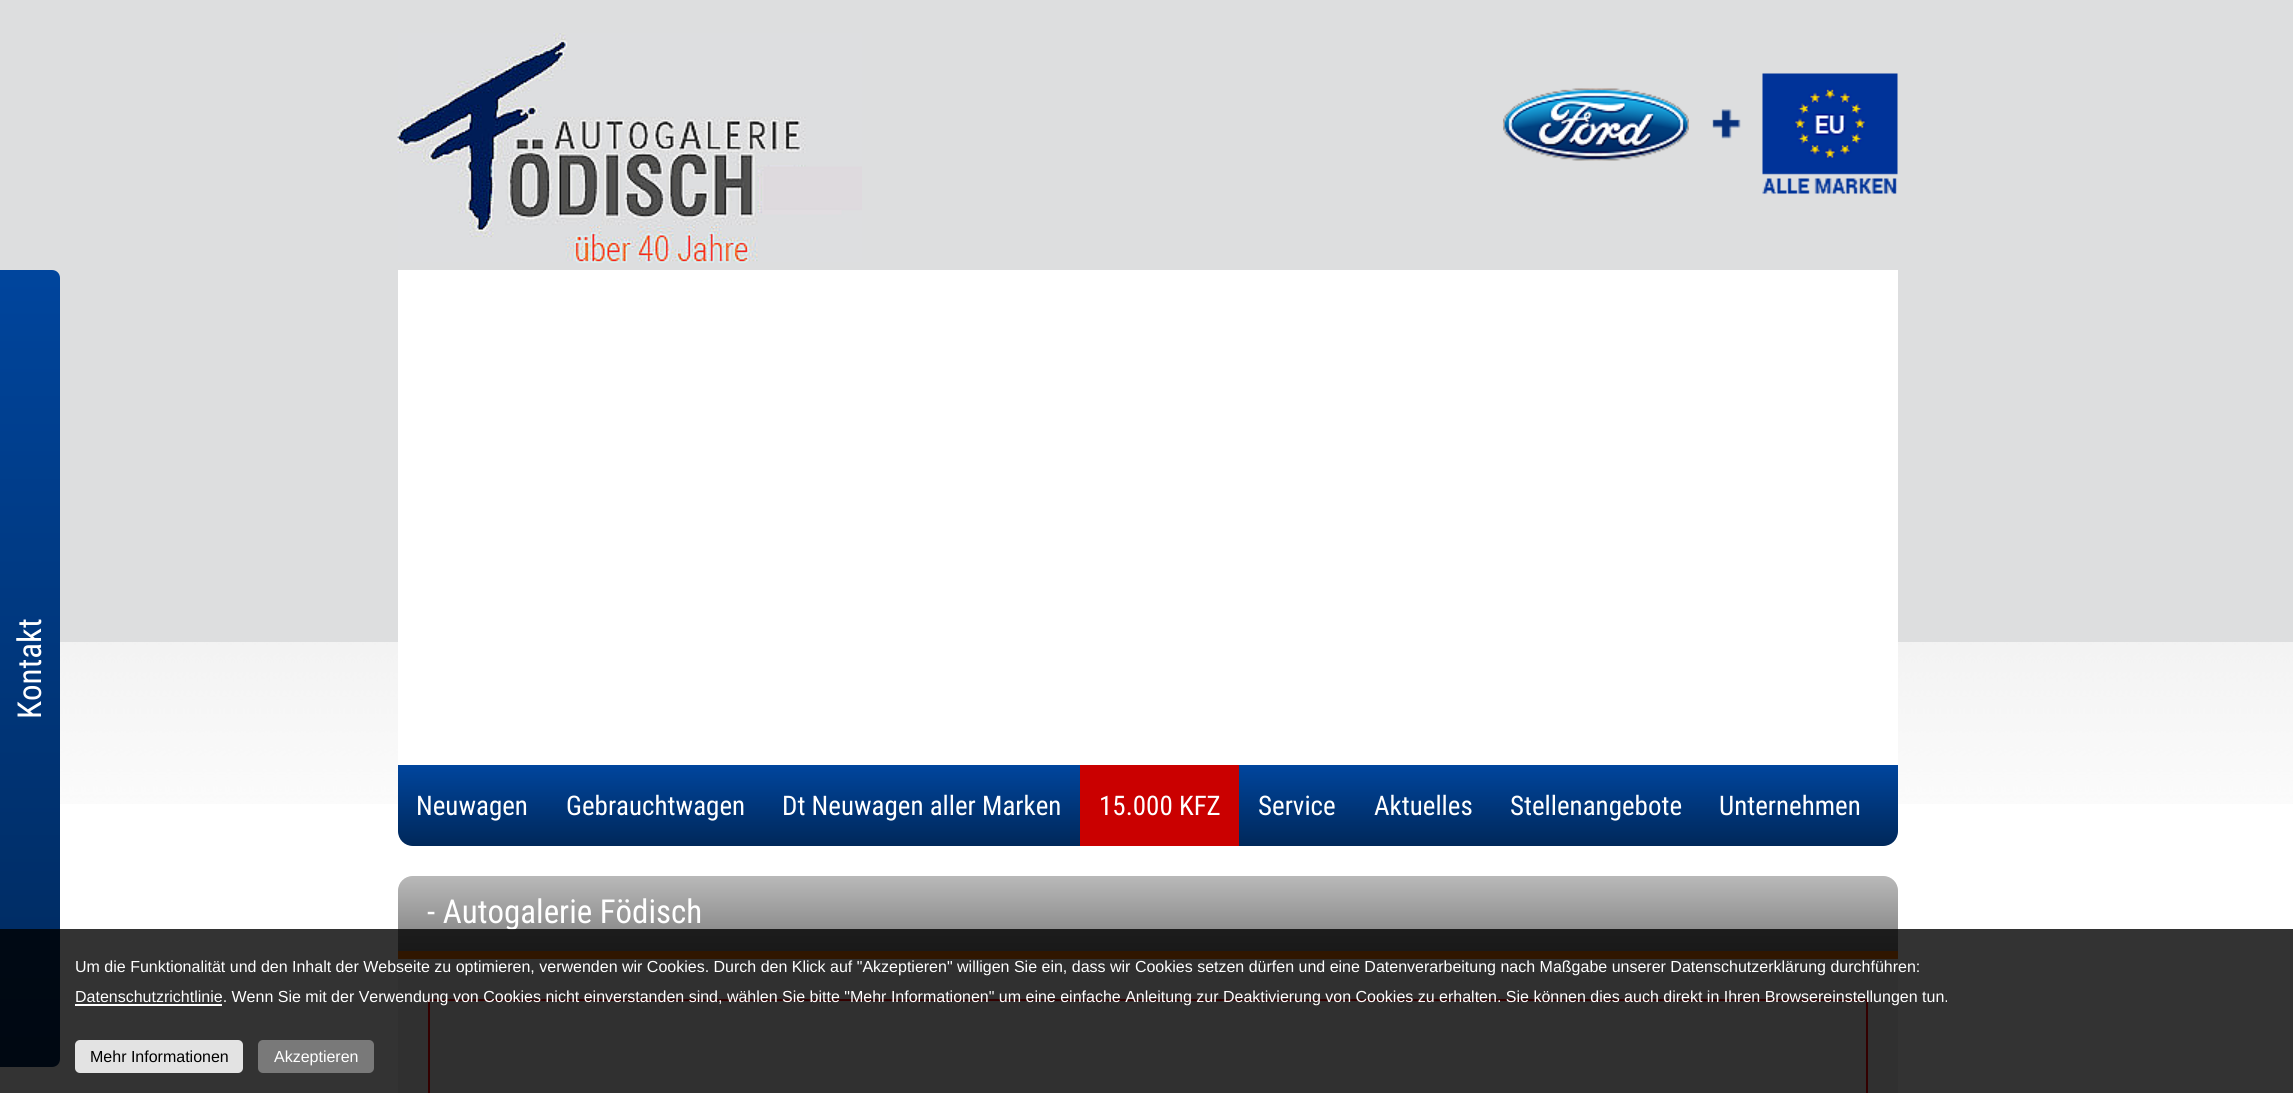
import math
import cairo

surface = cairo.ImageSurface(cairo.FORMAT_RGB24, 2293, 1093)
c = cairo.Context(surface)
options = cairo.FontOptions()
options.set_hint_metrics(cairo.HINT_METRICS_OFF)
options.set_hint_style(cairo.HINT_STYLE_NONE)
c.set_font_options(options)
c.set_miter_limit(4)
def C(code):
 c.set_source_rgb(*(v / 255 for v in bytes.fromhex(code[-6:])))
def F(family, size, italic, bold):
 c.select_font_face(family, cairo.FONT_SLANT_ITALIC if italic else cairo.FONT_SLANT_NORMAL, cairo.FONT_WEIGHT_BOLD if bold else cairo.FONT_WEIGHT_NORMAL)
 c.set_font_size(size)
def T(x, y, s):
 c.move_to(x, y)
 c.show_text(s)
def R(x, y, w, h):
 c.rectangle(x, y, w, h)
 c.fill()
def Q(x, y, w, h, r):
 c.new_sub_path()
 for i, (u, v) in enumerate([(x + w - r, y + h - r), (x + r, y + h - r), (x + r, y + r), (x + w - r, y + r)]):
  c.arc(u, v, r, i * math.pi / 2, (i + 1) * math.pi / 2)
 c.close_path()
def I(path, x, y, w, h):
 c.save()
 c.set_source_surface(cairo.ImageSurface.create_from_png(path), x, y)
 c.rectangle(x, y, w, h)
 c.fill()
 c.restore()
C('ffffff')
c.paint()
I('1.png',60,642,2233,162)
C('dddedf')
R(0,0,2293,642)
I('2.png',397,33,465,230)
I('3.png',1503,88,186,73)
I('4.png',1712,73,186,121)
gradient = cairo.LinearGradient(-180,270,-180,1067)
gradient.add_color_stop_rgba(0,0,0.271,0.616,1)
gradient.add_color_stop_rgba(1,0,0.157,0.353,1)
c.set_source(gradient)
c.new_path()
c.move_to(-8,270)
c.line_to(52,270)
c.curve_to(56.5,270,60,273.5,60,278)
c.line_to(60,1059)
c.curve_to(60,1063.5,56.5,1067,52,1067)
c.line_to(-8,1067)
c.close_path()
c.fill()
F('Roboto Condensed',33,0,0)
C('ffffff')
c.save()
c.translate(41,719)
c.rotate(-90 * math.pi / 180)
T(0,0,'Kontakt')
c.restore()
R(398,270,1500,534)
gradient = cairo.LinearGradient(1148,765,1148,846)
gradient.add_color_stop_rgba(0,0,0.271,0.616,1)
gradient.add_color_stop_rgba(1,0,0.157,0.353,1)
c.set_source(gradient)
c.new_path()
c.move_to(398,765)
c.line_to(1898,765)
c.line_to(1898,831)
c.curve_to(1898,839.5,1891.5,846,1883,846)
c.line_to(413,846)
c.curve_to(404.5,846,398,839.5,398,831)
c.close_path()
c.fill()
F('Roboto Condensed',27,0,0)
C('ffffff')
T(416,815,'Neuwagen')
T(566,815,'Gebrauchtwagen')
T(782,815,'Dt Neuwagen aller Marken')
C('ca0000')
R(1080,765,159,81)
C('ffffff')
T(1099,815,'15.000 KFZ')
T(1258,815,'Service')
T(1374,815,'Aktuelles')
T(1510,815,'Stellenangebote')
T(1719,815,'Unternehmen')
C('eeeeee')
Q(398,876,1500,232,15)
c.fill()
gradient = cairo.LinearGradient(1148,876,1148,951)
gradient.add_color_stop_rgba(0,0.725,0.725,0.725,1)
gradient.add_color_stop_rgba(1,0.494,0.494,0.494,1)
c.set_source(gradient)
c.new_path()
c.move_to(413,876)
c.line_to(1883,876)
c.curve_to(1891.5,876,1898,882.5,1898,891)
c.line_to(1898,951)
c.line_to(398,951)
c.line_to(398,891)
c.curve_to(398,882.5,404.5,876,413,876)
c.close_path()
c.fill()
C('f07000')
R(398,951,1500,8)
F('Roboto Condensed',33,0,0)
C('ffffff')
T(427,923,'- Autogalerie Födisch')
c.rectangle(429,1000,1438,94)
C('ff0000')
c.stroke()
c.set_source_rgba(0,0,0,0.8)
R(0,929,2293,164)
F('Liberation Sans',16,0,0)
C('ffffff')
T(75,972,'Um die Funktionalität und den Inhalt der Webseite zu optimieren, verwenden wir Cookies. Durch den Klick auf "Akzeptieren" willigen Sie ein, dass wir Cookies setzen dürfen und eine Datenverarbeitung nach Maßgabe unserer Datenschutzerklärung durchführen:')
R(75,1004,147,2)
T(75,1002,'Datenschutzrichtlinie. Wenn Sie mit der Verwendung von Cookies nicht einverstanden sind, wählen Sie bitte "Mehr Informationen" um eine einfache Anleitung zur Deaktivierung von Cookies zu erhalten. Sie können dies auch direkt in Ihren Browsereinstellungen tun.')
C('e3e3e3')
Q(75,1040,168,33,5)
c.fill()
C('000000')
T(90,1062,'Mehr Informationen')
C('797979')
Q(258,1040,116,33,5)
c.fill()
C('ffffff')
T(274,1062,'Akzeptieren')
surface.write_to_png('o.png')
